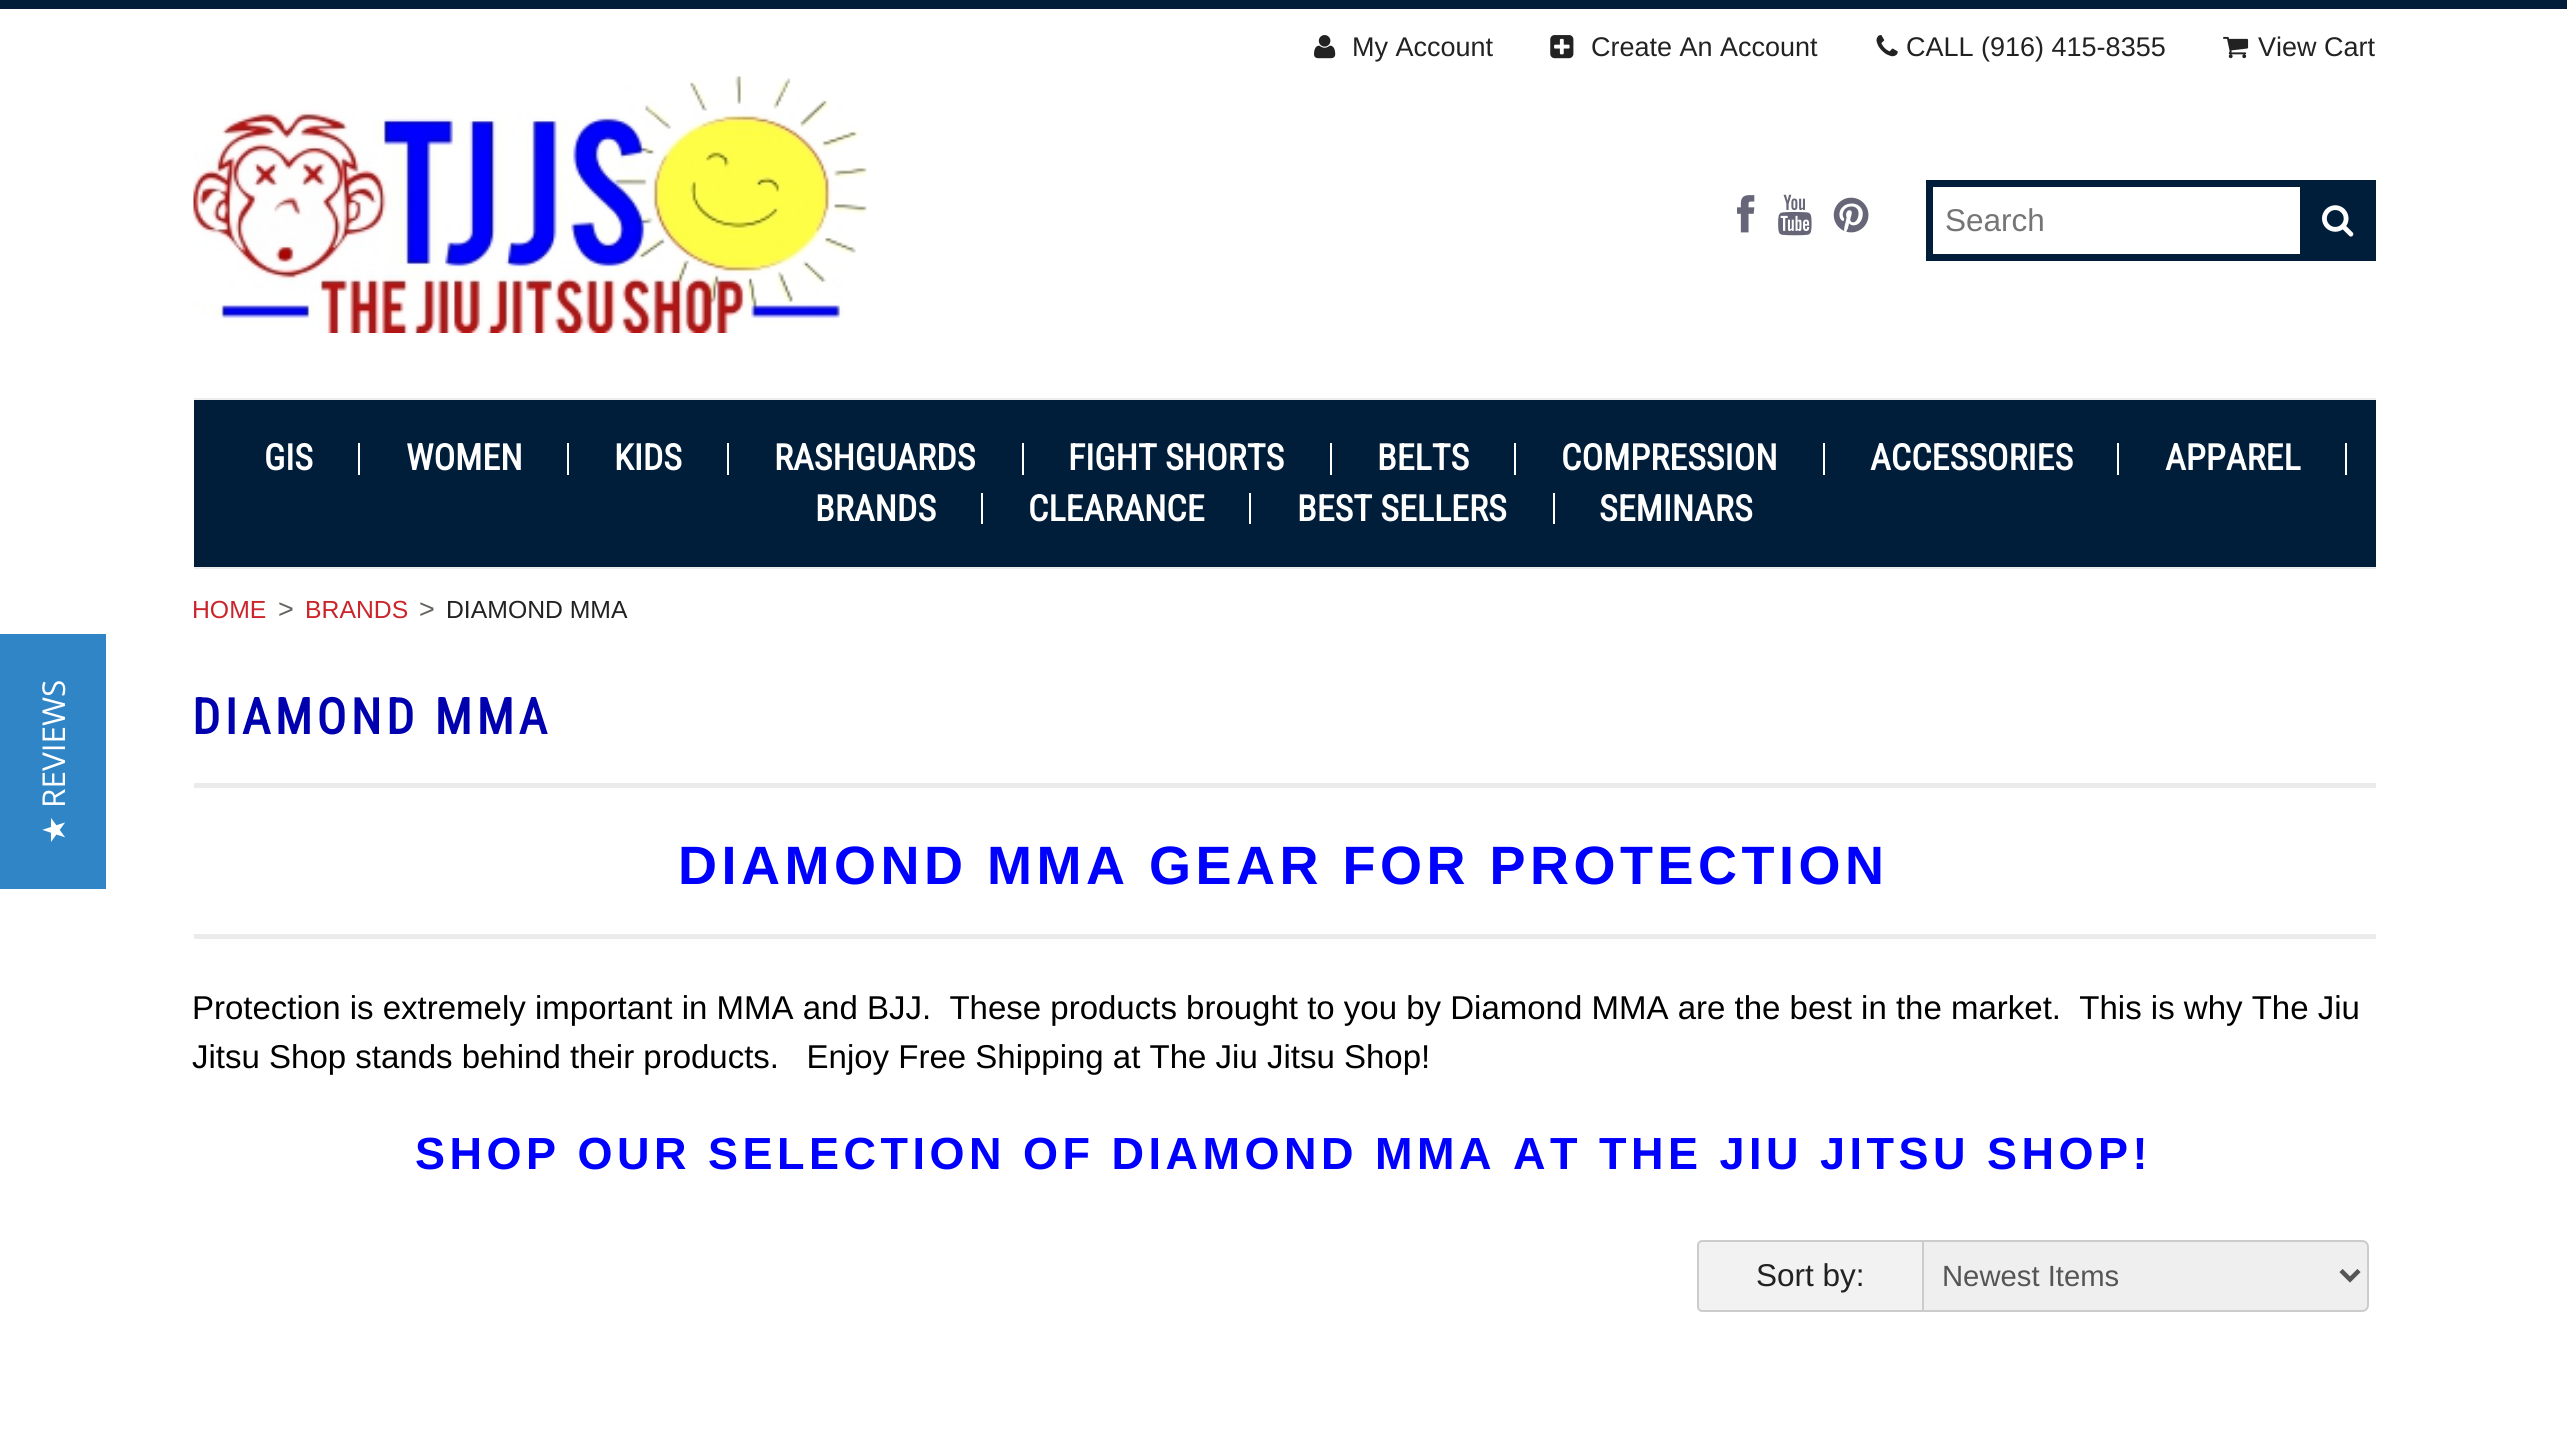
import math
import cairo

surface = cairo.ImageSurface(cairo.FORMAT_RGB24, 2567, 1452)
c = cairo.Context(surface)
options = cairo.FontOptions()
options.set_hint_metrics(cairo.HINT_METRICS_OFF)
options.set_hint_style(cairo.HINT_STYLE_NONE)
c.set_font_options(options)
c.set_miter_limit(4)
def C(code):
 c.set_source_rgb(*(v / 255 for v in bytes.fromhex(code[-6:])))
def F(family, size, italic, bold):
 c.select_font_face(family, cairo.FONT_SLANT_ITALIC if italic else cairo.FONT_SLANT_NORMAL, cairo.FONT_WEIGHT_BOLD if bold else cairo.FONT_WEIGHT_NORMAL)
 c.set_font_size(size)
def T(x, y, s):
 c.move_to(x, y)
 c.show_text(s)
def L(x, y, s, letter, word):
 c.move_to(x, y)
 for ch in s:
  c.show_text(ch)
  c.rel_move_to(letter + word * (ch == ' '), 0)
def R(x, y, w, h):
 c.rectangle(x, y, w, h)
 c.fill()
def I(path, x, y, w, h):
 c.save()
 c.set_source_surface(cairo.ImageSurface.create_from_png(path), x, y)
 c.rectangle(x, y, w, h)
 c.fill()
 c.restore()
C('ffffff')
c.paint()
C('3085c7')
R(0,634,106,255)
F('Open Sans',31.5,0,0)
C('ffffff')
c.save()
c.translate(65,808)
c.rotate(-90 * math.pi / 180)
T(0,0,'REVIEWS')
c.restore()
F('DejaVu Sans',31.5,0,0)
c.save()
c.translate(65,844)
c.rotate(-90 * math.pi / 180)
T(0,0,'★')
c.restore()
C('001e3a')
R(0,0,2567,9)
I('1.png',1314,35,22,24)
F('Liberation Sans',27,0,0)
C('222222')
T(1352,56,'My Account')
I('2.png',1550,35,24,24)
T(1591,56,'Create An Account')
I('3.png',1876,35,22,22)
T(1906,56,'CALL (916) 415-8355')
I('4.png',2223,36,26,23)
T(2258,56,'View Cart')
I('5.png',193,76,674,257)
I('6.png',1737,195,18,38)
I('7.png',1778,194,34,42)
I('8.png',1833,197,36,36)
c.rectangle(1929.5,183.5,443,74)
C('001e3a')
c.set_line_width(7)
c.stroke()
F('Liberation Sans',31.5,0,0)
C('757575')
T(1945,231,'Search')
C('001e3a')
R(2300,187,69,67)
I('9.png',2322,205,32,32)
R(194,400,2182,167)
C('ededed')
R(194,398,2182,2)
R(194,567,2182,2)
C('ffffff')
R(358,443,2,32)
F('Roboto Condensed',36,0,1)
T(264,470,'GIS')
R(567,443,2,32)
T(406,470,'WOMEN')
R(727,443,2,32)
T(614,470,'KIDS')
R(1022,443,2,32)
T(774,470,'RASHGUARDS')
R(1330,443,2,32)
T(1068,470,'FIGHT SHORTS')
R(1514,443,2,32)
T(1377,470,'BELTS')
R(1823,443,2,32)
T(1561,470,'COMPRESSION')
R(2117,443,2,32)
T(1870,470,'ACCESSORIES')
R(2345,443,2,32)
T(2165,470,'APPAREL')
R(981,493,2,31)
T(815,521,'BRANDS')
R(1249,493,2,31)
T(1028,521,'CLEARANCE')
R(1553,493,2,31)
T(1297,521,'BEST SELLERS')
T(1599,521,'SEMINARS')
F('Liberation Sans',24.75,0,0)
C('ca252b')
T(192,618,'HOME')
F('Liberation Sans',27,0,0)
C('66635e')
T(278,618,'>')
F('Liberation Sans',24.75,0,0)
C('ca252b')
T(305,618,'BRANDS')
F('Liberation Sans',27,0,0)
C('66635e')
T(419,618,'>')
F('Liberation Sans',24.75,0,0)
C('222222')
T(446,618,'DIAMOND MMA')
C('ebebeb')
R(194,783,2182,5)
F('Roboto Condensed',49.5,0,1)
C('0000ae')
L(192,734,'DIAMOND MMA',4.5,0)
C('ebebeb')
R(194,934,2182,5)
F('Liberation Sans',54,0,1)
C('0000ff')
L(678,884,'DIAMOND MMA GEAR FOR PROTECTION',4.5,0)
F('Liberation Sans',33,0,0)
C('000000')
T(192,1019,'Protection is extremely important in MMA and BJJ.  These products brought to you by Diamond MMA are the best in the market.  This is why The Jiu')
T(192,1068,'Jitsu Shop stands behind their products.   Enjoy Free Shipping at The Jiu Jitsu Shop!')
F('Liberation Sans',45,0,1)
C('0000ff')
L(415,1169,'SHOP OUR SELECTION OF DIAMOND MMA AT THE JIU JITSU SHOP!',4.5,0)
C('efefef')
c.new_path()
c.move_to(1916,1241)
c.line_to(2362,1241)
c.curve_to(2365.5,1241,2368,1243.5,2368,1247)
c.line_to(2368,1305)
c.curve_to(2368,1308.5,2365.5,1311,2362,1311)
c.line_to(1916,1311)
c.close_path()
c.fill_preserve()
C('cccccc')
c.set_line_width(2)
c.stroke()
C('f2f2f2')
c.new_path()
c.move_to(1702,1241)
c.line_to(1923,1241)
c.line_to(1923,1311)
c.line_to(1702,1311)
c.curve_to(1700,1311,1698,1309,1698,1307)
c.line_to(1698,1245)
c.curve_to(1698,1243,1700,1241,1702,1241)
c.close_path()
c.fill_preserve()
C('cccccc')
c.stroke()
F('Liberation Sans',31.5,0,0)
C('222222')
T(1756,1286,'Sort by:')
c.new_path()
c.move_to(2341,1270.5)
c.line_to(2350,1279.5)
c.line_to(2359,1270.5)
C('555555')
c.set_line_width(4.5)
c.stroke()
F('Liberation Sans',29.25,0,0)
T(1942,1286,'Newest Items')
surface.write_to_png('o.png')
